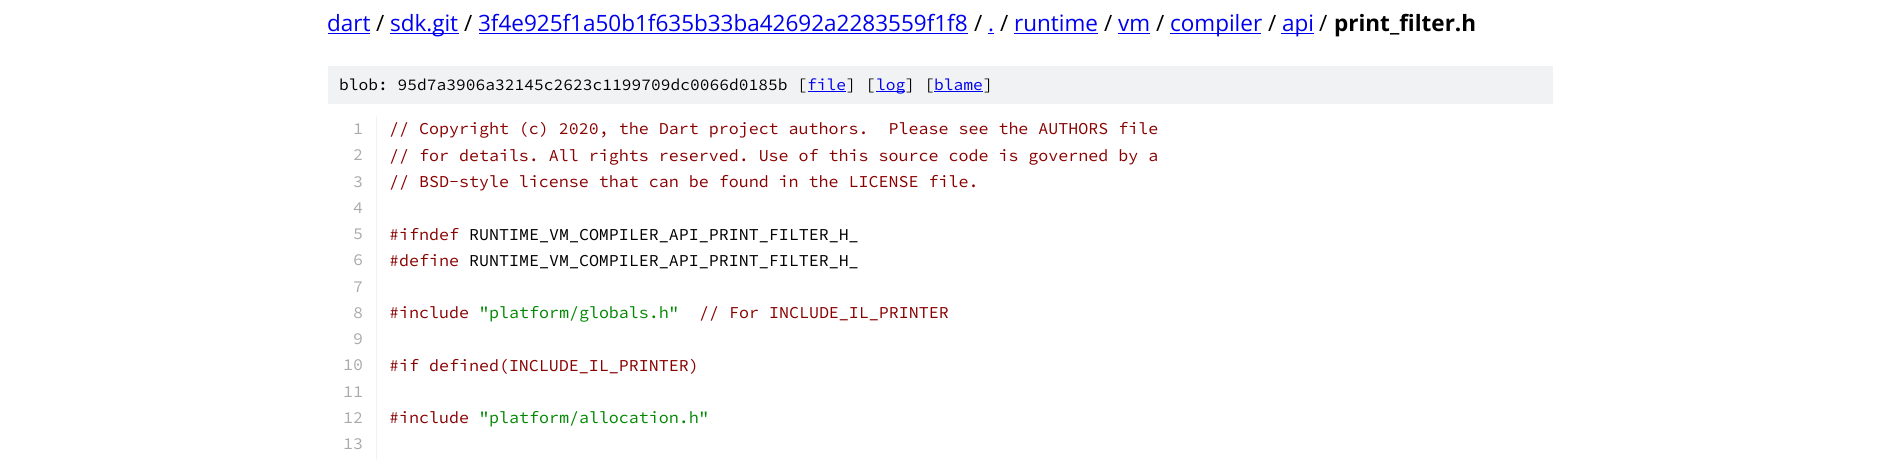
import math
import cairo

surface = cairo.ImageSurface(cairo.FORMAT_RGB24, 1878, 460)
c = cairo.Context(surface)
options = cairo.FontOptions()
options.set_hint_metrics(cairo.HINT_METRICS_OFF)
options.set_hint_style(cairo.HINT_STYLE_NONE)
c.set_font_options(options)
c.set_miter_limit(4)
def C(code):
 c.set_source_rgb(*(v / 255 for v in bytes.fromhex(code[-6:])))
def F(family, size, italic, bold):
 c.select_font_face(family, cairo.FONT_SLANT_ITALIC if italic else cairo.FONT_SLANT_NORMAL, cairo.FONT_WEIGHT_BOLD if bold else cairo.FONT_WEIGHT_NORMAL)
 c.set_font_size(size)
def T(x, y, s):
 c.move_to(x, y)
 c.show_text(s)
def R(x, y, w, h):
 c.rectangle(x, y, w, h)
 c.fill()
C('ffffff')
c.paint()
F('Open Sans',22.5,0,0)
C('0000ee')
T(327,31,'dart')
R(328,33,42,1)
C('000000')
T(376,31,'/')
C('0000ee')
R(390,33,69,1)
T(390,31,'sdk.git')
C('000000')
T(464,31,'/')
C('0000ee')
T(478,31,'3f4e925f1a50b1f635b33ba42692a2283559f1f8')
R(479,33,489,1)
C('000000')
T(974,31,'/')
C('0000ee')
T(988,31,'.')
R(988,33,6,1)
C('000000')
T(1000,31,'/')
C('0000ee')
T(1014,31,'runtime')
R(1014,33,84,1)
C('000000')
T(1104,31,'/')
C('0000ee')
T(1118,31,'vm')
R(1118,33,32,1)
C('000000')
T(1156,31,'/')
C('0000ee')
R(1170,33,91,1)
T(1170,31,'compiler')
C('000000')
T(1268,31,'/')
C('0000ee')
R(1281,33,33,1)
T(1282,31,'api')
C('000000')
T(1319,31,'/')
F('Open Sans',22.5,0,1)
T(1334,31,'print_filter.h')
C('f1f2f3')
R(328,66,1225,38)
F('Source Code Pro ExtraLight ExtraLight',16.25,0,0)
C('000000')
T(339,90,'blob: 95d7a3906a32145c2623c1199709dc0066d0185b [')
C('0000ee')
T(807,90,'file')
R(808,91,38,1)
C('000000')
T(846,90,'] [')
C('0000ee')
R(876,91,29,1)
T(876,90,'log')
C('000000')
T(905,90,'] [')
C('0000ee')
T(934,90,'blame')
R(934,91,49,1)
C('000000')
T(983,90,']')
C('f1f2f3')
R(376,116,1,344)
F('Source Code Pro ExtraLight ExtraLight',16.65,0,0)
C('aaaaaa')
T(353,134,'1')
C('880000')
T(389,134,'// Copyright (c) 2020, the Dart project authors.  Please see the AUTHORS file')
C('aaaaaa')
T(353,160,'2')
C('880000')
T(389,161,'// for details. All rights reserved. Use of this source code is governed by a')
C('aaaaaa')
T(353,187,'3')
C('880000')
T(389,187,'// BSD-style license that can be found in the LICENSE file.')
C('aaaaaa')
T(353,213,'4')
T(353,239,'5')
C('880000')
T(389,240,'#ifndef')
C('000000')
T(469,240,'RUNTIME_VM_COMPILER_API_PRINT_FILTER_H_')
C('aaaaaa')
T(353,265,'6')
C('880000')
T(389,266,'#define')
C('000000')
T(469,266,'RUNTIME_VM_COMPILER_API_PRINT_FILTER_H_')
C('aaaaaa')
T(353,292,'7')
T(353,318,'8')
C('880000')
T(389,318,'#include')
C('008800')
T(479,318,'"platform/globals.h"')
C('880000')
T(699,318,'// For INCLUDE_IL_PRINTER')
C('aaaaaa')
T(353,344,'9')
T(343,370,'10')
C('880000')
T(389,371,'#if defined(INCLUDE_IL_PRINTER)')
C('aaaaaa')
T(343,397,'11')
T(343,423,'12')
C('880000')
T(389,423,'#include')
C('008800')
T(479,423,'"platform/allocation.h"')
C('aaaaaa')
T(343,449,'13')
surface.write_to_png('o.png')
